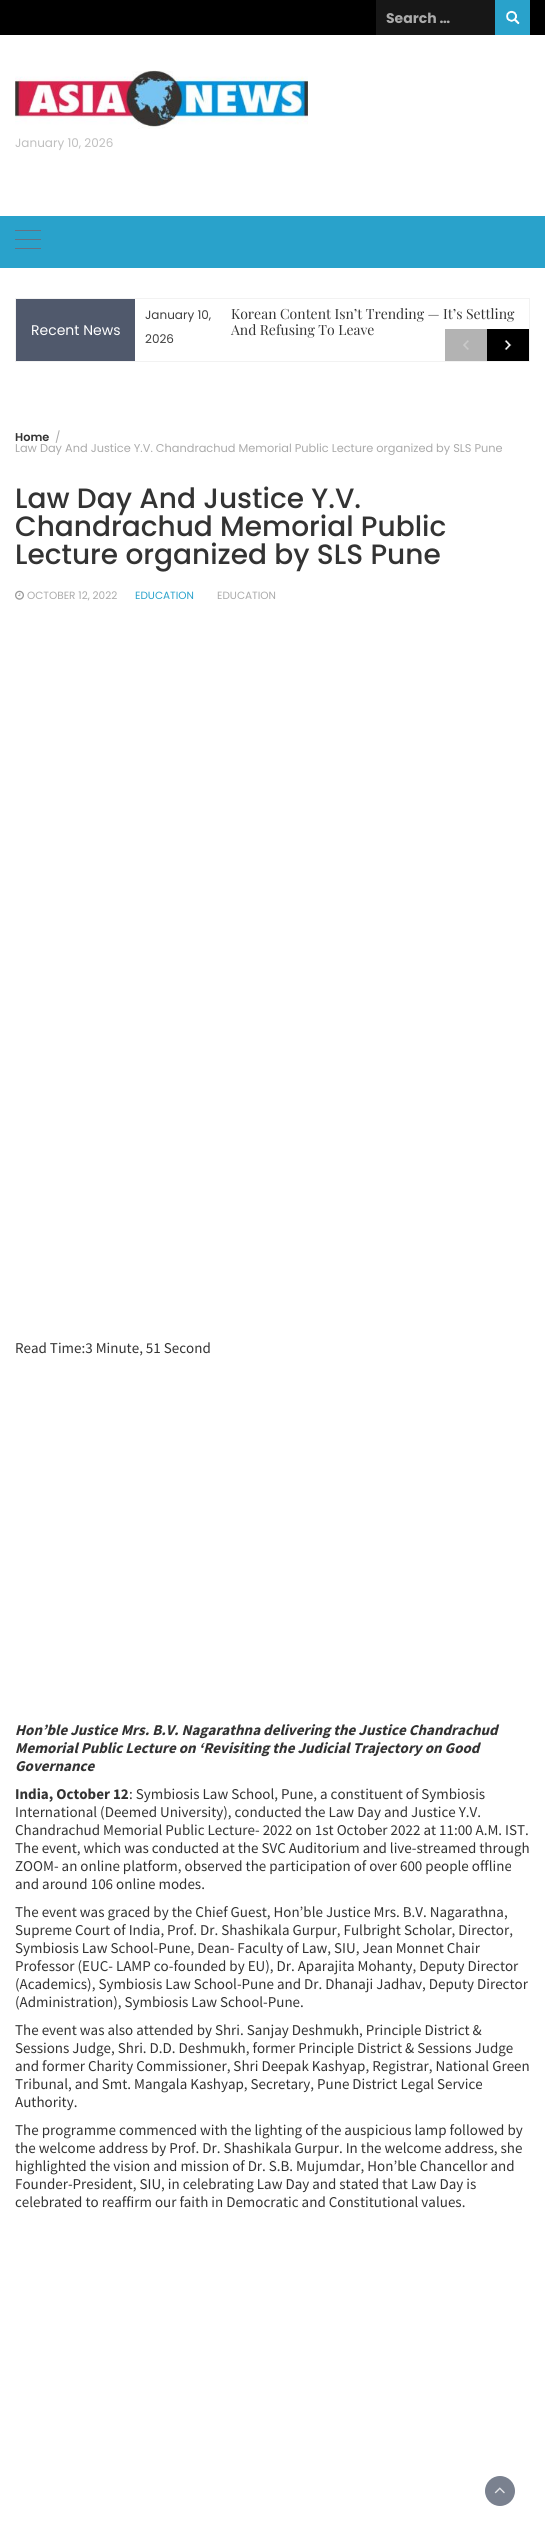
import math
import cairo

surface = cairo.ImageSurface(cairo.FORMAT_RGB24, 545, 2536)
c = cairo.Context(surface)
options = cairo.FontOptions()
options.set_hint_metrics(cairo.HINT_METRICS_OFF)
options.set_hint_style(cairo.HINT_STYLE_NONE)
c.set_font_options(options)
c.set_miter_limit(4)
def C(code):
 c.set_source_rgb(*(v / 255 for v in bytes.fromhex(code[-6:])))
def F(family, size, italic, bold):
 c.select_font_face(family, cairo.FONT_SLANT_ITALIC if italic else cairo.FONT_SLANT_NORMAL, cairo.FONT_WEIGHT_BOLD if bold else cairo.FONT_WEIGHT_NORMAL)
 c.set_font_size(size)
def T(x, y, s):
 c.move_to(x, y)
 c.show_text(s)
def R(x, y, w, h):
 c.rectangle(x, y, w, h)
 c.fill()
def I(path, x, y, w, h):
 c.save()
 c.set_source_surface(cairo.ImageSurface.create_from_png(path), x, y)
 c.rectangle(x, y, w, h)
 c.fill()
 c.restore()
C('ffffff')
c.paint()
C('000000')
R(0,0,545,35)
C('171717')
R(376,0,119,35)
F('Poppins',14,0,1)
C('aaaaaa')
T(386,23,'Search …')
C('29a2cb')
R(495,0,35,35)
I('1.png',506,10,14,15)
I('2.png',15,70,293,59)
F('Poppins',12,0,0)
C('bfbfbf')
T(15,147,'January 10, 2026')
C('29a2cb')
R(0,216,545,52)
C('657182')
R(15,230,26,1)
R(15,239,26,1)
R(15,248,26,1)
c.rectangle(15.5,298.5,514,63)
C('f2f2f2')
c.set_line_width(1)
c.stroke()
C('50596c')
R(16,299,119,62)
F('Poppins',14,0,0)
C('ffffff')
T(31,335,'Recent News')
F('Poppins',12,0,0)
C('3f3f3f')
T(145,319,'January 10,')
T(145,343,'2026')
F('Playfair Display',14,0,0)
C('333333')
T(231,319,'Korean Content Isn’t Trending — It’s Settling')
T(231,335,'And Refusing To Leave')
C('b3b3b3')
R(445,329,42,32)
I('3.png',463,340,6,10)
C('000000')
R(487,329,42,32)
I('4.png',504,340,8,10)
F('Poppins SemiBold',11.35,0,0)
C('333333')
T(15,441,'Home')
F('Poppins',11.35,0,0)
C('aaaaaa')
T(55,441,'/')
T(15,452,'Law Day And Justice Y.V. Chandrachud Memorial Public Lecture organized by SLS Pune')
F('Poppins Medium',28,0,0)
C('333333')
T(15,508,'Law Day And Justice Y.V.')
T(15,536,'Chandrachud Memorial Public')
T(15,564,'Lecture organized by SLS Pune')
I('5.png',15,590,9,10)
F('Poppins',10.5,0,0)
C('aaaaaa')
T(27,599,'OCTOBER 12, 2022')
C('29a2cb')
T(135,599,'EDUCATION')
C('aaaaaa')
T(217,599,'EDUCATION')
F('Source Sans Pro',15,0,0)
C('333333')
T(15,1353,'Read Time:3 Minute, 51 Second')
F('Source Sans Pro',15,1,1)
T(15,1735,'Hon’ble Justice Mrs. B.V. Nagarathna delivering the Justice Chandrachud')
T(15,1753,'Memorial Public Lecture on ‘Revisiting the Judicial Trajectory on Good')
T(15,1771,'Governance')
F('Source Sans Pro',15,0,1)
T(15,1799,'India, October 12')
F('Source Sans Pro',15,0,0)
T(129,1799,': Symbiosis Law School, Pune, a constituent of Symbiosis')
T(15,1817,'International (Deemed University), conducted the Law Day and Justice Y.V.')
T(15,1835,'Chandrachud Memorial Public Lecture- 2022 on 1st October 2022 at 11:00 A.M. IST.')
T(15,1853,'The event, which was conducted at the SVC Auditorium and live-streamed through')
T(15,1871,'ZOOM- an online platform, observed the participation of over 600 people offline')
T(15,1889,'and around 106 online modes.')
T(15,1917,'The event was graced by the Chief Guest, Hon’ble Justice Mrs. B.V. Nagarathna,')
T(15,1935,'Supreme Court of India, Prof. Dr. Shashikala Gurpur, Fulbright Scholar, Director,')
T(15,1953,'Symbiosis Law School-Pune, Dean- Faculty of Law, SIU, Jean Monnet Chair')
T(15,1971,'Professor (EUC- LAMP co-founded by EU), Dr. Aparajita Mohanty, Deputy Director')
T(15,1989,'(Academics), Symbiosis Law School-Pune and Dr. Dhanaji Jadhav, Deputy Director')
T(15,2007,'(Administration), Symbiosis Law School-Pune.')
T(15,2035,'The event was also attended by Shri. Sanjay Deshmukh, Principle District &')
T(15,2053,'Sessions Judge, Shri. D.D. Deshmukh, former Principle District & Sessions Judge')
T(15,2071,'and former Charity Commissioner, Shri Deepak Kashyap, Registrar, National Green')
T(15,2089,'Tribunal, and Smt. Mangala Kashyap, Secretary, Pune District Legal Service')
T(15,2107,'Authority.')
T(15,2135,'The programme commenced with the lighting of the auspicious lamp followed by')
T(15,2153,'the welcome address by Prof. Dr. Shashikala Gurpur. In the welcome address, she')
T(15,2171,'highlighted the vision and mission of Dr. S.B. Mujumdar, Hon’ble Chancellor and')
T(15,2189,'Founder-President, SIU, in celebrating Law Day and stated that Law Day is')
T(15,2207,'celebrated to reaffirm our faith in Democratic and Constitutional values.')
C('7a818f')
c.new_path()
c.arc(500,2491,15,0,2 * math.pi)
c.fill()
I('6.png',494,2487,11,7)
surface.write_to_png('o.png')
